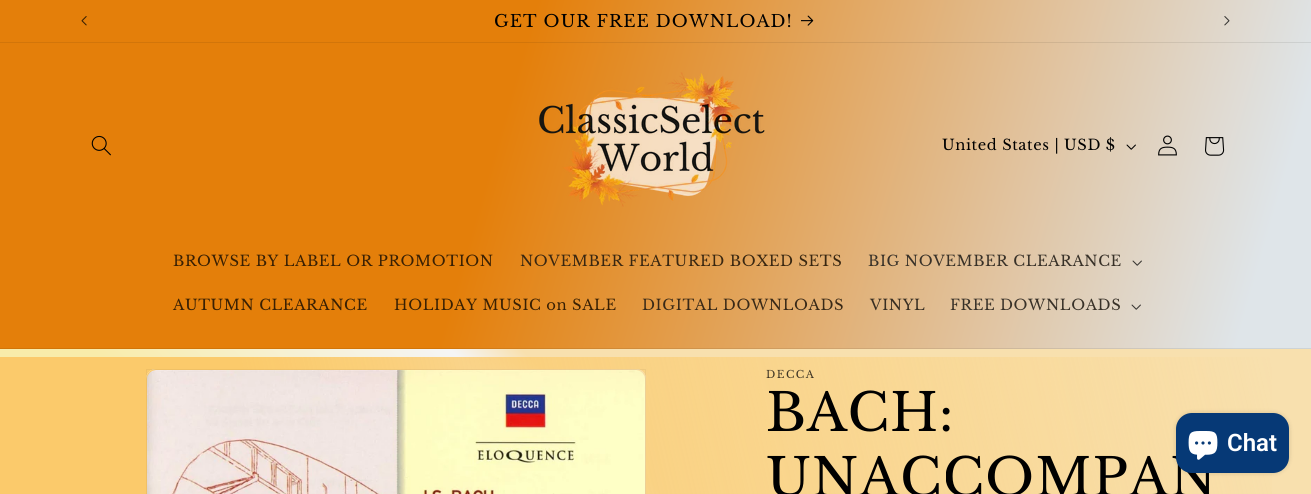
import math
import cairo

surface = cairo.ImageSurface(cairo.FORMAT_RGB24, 1311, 494)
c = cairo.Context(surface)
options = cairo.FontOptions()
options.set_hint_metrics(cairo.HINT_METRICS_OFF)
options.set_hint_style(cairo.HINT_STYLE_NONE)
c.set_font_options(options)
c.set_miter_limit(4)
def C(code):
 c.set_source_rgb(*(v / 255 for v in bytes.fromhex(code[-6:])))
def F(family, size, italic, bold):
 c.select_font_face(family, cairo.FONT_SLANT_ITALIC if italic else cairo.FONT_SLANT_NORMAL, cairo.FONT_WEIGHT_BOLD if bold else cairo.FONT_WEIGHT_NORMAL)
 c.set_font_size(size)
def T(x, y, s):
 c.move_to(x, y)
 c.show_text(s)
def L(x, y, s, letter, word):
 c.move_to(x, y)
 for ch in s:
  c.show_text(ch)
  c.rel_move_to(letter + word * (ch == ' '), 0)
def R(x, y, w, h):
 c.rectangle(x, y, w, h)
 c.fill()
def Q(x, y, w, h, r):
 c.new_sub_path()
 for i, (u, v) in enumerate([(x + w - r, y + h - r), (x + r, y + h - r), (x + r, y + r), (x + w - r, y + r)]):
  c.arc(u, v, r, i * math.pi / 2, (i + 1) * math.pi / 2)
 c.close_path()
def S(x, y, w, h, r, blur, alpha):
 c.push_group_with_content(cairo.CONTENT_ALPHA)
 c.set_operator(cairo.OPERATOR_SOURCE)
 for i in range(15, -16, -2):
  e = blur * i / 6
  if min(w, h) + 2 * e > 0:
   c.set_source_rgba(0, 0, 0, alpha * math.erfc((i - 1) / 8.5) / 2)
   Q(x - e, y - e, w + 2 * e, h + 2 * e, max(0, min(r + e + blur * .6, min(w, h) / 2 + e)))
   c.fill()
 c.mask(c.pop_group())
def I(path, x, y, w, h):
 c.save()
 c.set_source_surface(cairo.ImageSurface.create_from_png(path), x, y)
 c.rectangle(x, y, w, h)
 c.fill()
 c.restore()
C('ffffff')
c.paint()
gradient = cairo.LinearGradient(193,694,1118,-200)
gradient.add_color_stop_rgba(.13,0.973,0.925,0.667,1)
gradient.add_color_stop_rgba(.33,0.961,0.961,0.961,1)
gradient.add_color_stop_rgba(.37,0.973,0.878,0.682,1)
c.set_source(gradient)
R(0,349,1311,145)
gradient = cairo.LinearGradient(-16,55,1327,439)
gradient.add_color_stop_rgba(.37,0.894,0.498,0.039,1)
gradient.add_color_stop_rgba(.92,0.875,0.898,0.914,1)
c.set_source(gradient)
R(0,0,1311,42)
gradient = cairo.LinearGradient(-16,55,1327,439)
gradient.add_color_stop_rgba(.37,0.824,0.459,0.035,1)
gradient.add_color_stop_rgba(.92,0.804,0.827,0.839,1)
c.set_source(gradient)
R(0,42,1311,1)
I('1.png',81,16,6,10)
F('Libre Baskerville',16.9,0,0)
C('000000')
L(494,27,'GET OUR FREE DOWNLOAD!',1.05,0)
I('2.png',801,15,13,11)
I('3.png',1224,16,6,10)
gradient = cairo.LinearGradient(-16,55,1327,439)
gradient.add_color_stop_rgba(.37,0.894,0.498,0.039,1)
gradient.add_color_stop_rgba(.92,0.875,0.898,0.914,1)
c.set_source(gradient)
R(0,43,1311,305)
gradient = cairo.LinearGradient(-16,55,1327,439)
gradient.add_color_stop_rgba(.37,0.824,0.459,0.035,1)
gradient.add_color_stop_rgba(.92,0.804,0.827,0.839,1)
c.set_source(gradient)
R(0,348,1311,1)
I('4.png',91,135,20,21)
I('5.png',539,72,226,135)
F('Libre Baskerville',14.7,0,0)
C('000000')
L(942,150,'United States | USD $',.6,0)
I('6.png',1126,144,10,6)
I('7.png',1158,135,19,21)
I('8.png',1205,137,20,19)
C('392003')
L(173,266,'BROWSE BY LABEL OR PROMOTION',.6,0)
C('392711')
L(520,266,'NOVEMBER FEATURED BOXED SETS',.6,0)
C('383128')
L(868,266,'BIG NOVEMBER CLEARANCE',.6,0)
I('9.png',1132,260,10,6)
C('392003')
L(173,310,'AUTUMN CLEARANCE',.6,0)
L(394,310,'HOLIDAY MUSIC on SALE',.6,0)
C('392917')
L(642,310,'DIGITAL DOWNLOADS',.6,0)
C('382e22')
L(870,310,'VINYL',.6,0)
C('383128')
L(950,310,'FREE DOWNLOADS',.6,0)
I('10.png',1131,304,10,6)
gradient = cairo.LinearGradient(-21,403,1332,91)
gradient.add_color_stop_rgba(.19,0.984,0.792,0.42,1)
gradient.add_color_stop_rgba(.92,0.984,0.792,0.42,0)
c.set_source(gradient)
R(0,357,1272,137)
C('f5f5f5')
Q(146,369,500,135,10)
c.fill()
gradient = cairo.LinearGradient(-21,403,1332,91)
gradient.add_color_stop_rgba(.19,0.984,0.792,0.42,1)
gradient.add_color_stop_rgba(.92,0.984,0.792,0.42,0)
c.set_source(gradient)
c.new_path()
c.move_to(156,369)
c.line_to(636,369)
c.curve_to(641.5,369,646,373.5,646,379)
c.line_to(646,494)
c.line_to(146,494)
c.line_to(146,379)
c.curve_to(146,373.5,150.5,369,156,369)
c.close_path()
c.fill()
c.rectangle(146.5,369.5,499,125)
c.set_source_rgba(0,0,0,0.05)
c.set_line_width(1)
c.stroke()
I('11.png',147,370,498,124)
F('Libre Baskerville',10.5,0,0)
C('3e3524')
L(766,378,'DECCA',1.5,0)
F('Libre Baskerville',52,0,0)
C('000000')
L(766,431,'BACH:',.75,0)
L(766,496,'UNACCOMPAN',.75,0)
C('000000')
S(1176,413,113,60,16,2.5,.15)
C('063976')
Q(1176,413,113,60,16)
c.fill()
I('12.png',1188,431,30,29)
F('Roboto SemiBold',24,0,0)
C('ffffff')
T(1227,451,'Chat')
surface.write_to_png('o.png')
